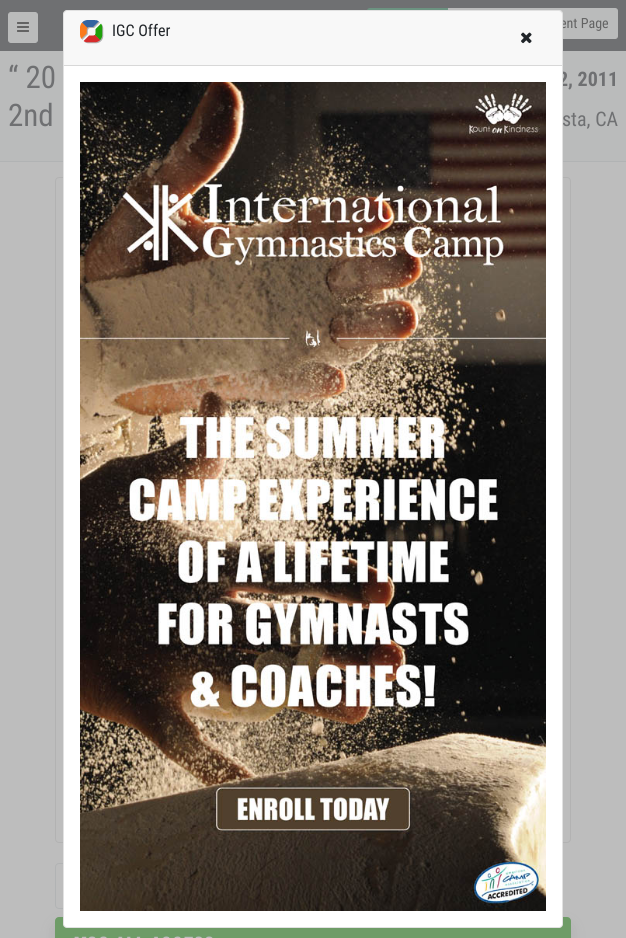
import math
import cairo

surface = cairo.ImageSurface(cairo.FORMAT_RGB24, 626, 938)
c = cairo.Context(surface)
options = cairo.FontOptions()
options.set_hint_metrics(cairo.HINT_METRICS_OFF)
options.set_hint_style(cairo.HINT_STYLE_NONE)
c.set_font_options(options)
c.set_miter_limit(4)
def C(code):
 c.set_source_rgb(*(v / 255 for v in bytes.fromhex(code[-6:])))
def F(family, size, italic, bold):
 c.select_font_face(family, cairo.FONT_SLANT_ITALIC if italic else cairo.FONT_SLANT_NORMAL, cairo.FONT_WEIGHT_BOLD if bold else cairo.FONT_WEIGHT_NORMAL)
 c.set_font_size(size)
def T(x, y, s):
 c.move_to(x, y)
 c.show_text(s)
def R(x, y, w, h):
 c.rectangle(x, y, w, h)
 c.fill()
def Q(x, y, w, h, r):
 c.new_sub_path()
 for i, (u, v) in enumerate([(x + w - r, y + h - r), (x + r, y + h - r), (x + r, y + r), (x + w - r, y + r)]):
  c.arc(u, v, r, i * math.pi / 2, (i + 1) * math.pi / 2)
 c.close_path()
def S(x, y, w, h, r, blur, alpha):
 c.push_group_with_content(cairo.CONTENT_ALPHA)
 c.set_operator(cairo.OPERATOR_SOURCE)
 for i in range(15, -16, -2):
  e = blur * i / 6
  if min(w, h) + 2 * e > 0:
   c.set_source_rgba(0, 0, 0, alpha * math.erfc((i - 1) / 8.5) / 2)
   Q(x - e, y - e, w + 2 * e, h + 2 * e, max(0, min(r + e + blur * .6, min(w, h) / 2 + e)))
   c.fill()
 c.mask(c.pop_group())
def I(path, x, y, w, h):
 c.save()
 c.set_source_surface(cairo.ImageSurface.create_from_png(path), x, y)
 c.rectangle(x, y, w, h)
 c.fill()
 c.restore()
C('bdbdbd')
c.paint()
C('6f7072')
R(0,0,626,51)
C('6c9381')
c.new_path()
c.move_to(370,8.5)
c.line_to(448.5,8.5)
c.line_to(448.5,38.5)
c.line_to(370,38.5)
c.curve_to(368.5,38.5,367.5,37.5,367.5,36)
c.line_to(367.5,11)
c.curve_to(367.5,9.5,368.5,8.5,370,8.5)
c.close_path()
c.fill_preserve()
c.set_line_width(1)
c.stroke()
C('babbbb')
c.new_path()
c.move_to(538.5,8.5)
c.line_to(615,8.5)
c.curve_to(616.5,8.5,617.5,9.5,617.5,11)
c.line_to(617.5,36)
c.curve_to(617.5,37.5,616.5,38.5,615,38.5)
c.line_to(538.5,38.5)
c.close_path()
c.fill_preserve()
c.stroke()
F('Roboto Condensed',14,0,0)
C('636363')
T(560,28,'ent Page')
C('babbbb')
R(0,51,626,110)
C('b1b3b4')
R(0,161,626,1)
F('Roboto Condensed',20,0,1)
C('6f7072')
T(558,86,'2, 2011')
F('Roboto Condensed',20,0,0)
T(562,126,'sta, CA')
Q(55.5,177.5,515,665,3.5)
C('b2b2b2')
c.stroke()
Q(55.5,863.5,411,45,3.5)
C('b1b3b4')
c.stroke()
C('636363')
S(55,925,516,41,4,8,.15)
C('6e9c67')
Q(55,917,516,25,4)
c.fill()
C('ffffff')
Q(63,10,500,918,4)
c.fill()
Q(63.5,10.5,499,917,3.5)
c.set_source_rgba(0,0,0,0.12)
c.stroke()
c.set_source_rgba(0,0,0,0.03)
R(64,11,498,54)
C('d8d8d8')
R(64,65,498,1)
I('1.png',80,20,24,24)
F('Roboto Condensed',16,0,0)
C('212529')
T(112,36,'IGC Offer')
I('2.png',521,32,11,12)
I('3.png',80,82,466,829)
C('babbbb')
Q(8.5,12.5,29,30,2.5)
c.fill_preserve()
c.stroke()
I('4.png',17,22,12,10)
R(448,8,90,2)
F('Roboto Condensed',31,0,0)
C('6f7072')
T(8,88,'“ 20')
T(8,126,'2nd')
I('5.png',74,936,139,2)
surface.write_to_png('o.png')
